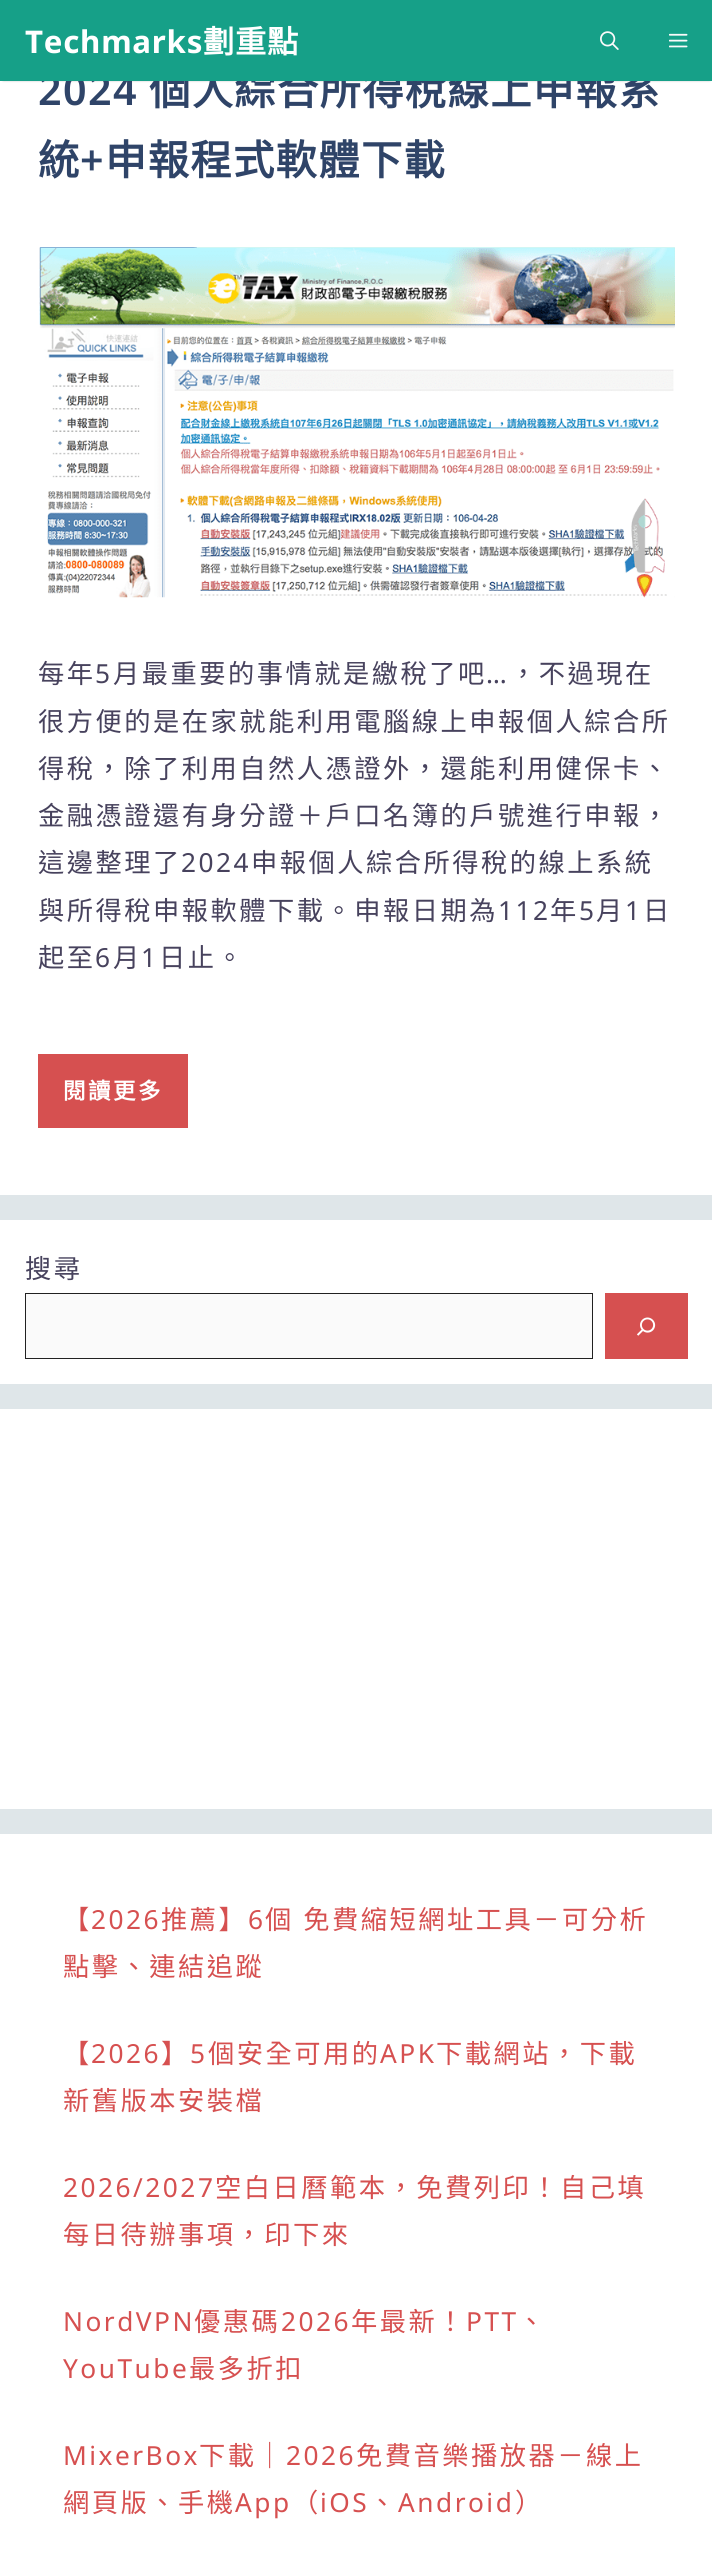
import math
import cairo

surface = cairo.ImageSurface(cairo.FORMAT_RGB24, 712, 2555)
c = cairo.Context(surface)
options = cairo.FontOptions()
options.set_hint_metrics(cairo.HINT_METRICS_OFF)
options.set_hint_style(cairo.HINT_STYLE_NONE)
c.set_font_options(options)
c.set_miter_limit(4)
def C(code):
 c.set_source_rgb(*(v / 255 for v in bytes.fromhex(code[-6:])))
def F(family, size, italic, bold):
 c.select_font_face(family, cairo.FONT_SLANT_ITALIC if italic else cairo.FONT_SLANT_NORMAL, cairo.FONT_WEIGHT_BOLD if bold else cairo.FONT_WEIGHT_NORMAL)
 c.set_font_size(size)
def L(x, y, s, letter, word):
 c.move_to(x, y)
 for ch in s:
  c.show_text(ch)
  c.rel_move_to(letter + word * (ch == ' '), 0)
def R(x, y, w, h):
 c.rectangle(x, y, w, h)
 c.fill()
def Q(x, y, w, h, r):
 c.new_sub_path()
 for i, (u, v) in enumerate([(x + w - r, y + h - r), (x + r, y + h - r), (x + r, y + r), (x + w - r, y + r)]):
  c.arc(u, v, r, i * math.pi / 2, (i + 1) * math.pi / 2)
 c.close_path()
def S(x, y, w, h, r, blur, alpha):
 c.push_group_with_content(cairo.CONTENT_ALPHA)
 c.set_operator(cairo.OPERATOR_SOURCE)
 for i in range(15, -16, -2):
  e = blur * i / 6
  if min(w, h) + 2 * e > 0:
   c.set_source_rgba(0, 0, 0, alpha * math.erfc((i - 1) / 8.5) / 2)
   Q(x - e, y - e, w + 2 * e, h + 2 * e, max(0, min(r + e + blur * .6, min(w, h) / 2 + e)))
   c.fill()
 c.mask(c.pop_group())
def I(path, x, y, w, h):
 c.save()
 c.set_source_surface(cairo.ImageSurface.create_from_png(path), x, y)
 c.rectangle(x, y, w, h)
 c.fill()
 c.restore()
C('dfe6e9')
c.paint()
C('ffffff')
R(0,81,712,1114)
C('000000')
S(3,5,707,76,0,1,.2)
F('Noto Sans SemiBold',41.25,0,0)
C('2f4468')
L(38,105,'2024',1.4,0)
F('Noto Sans CJK TC',41.25,0,1)
L(149,105,'個人綜合所得稅線上申報系',1.4,0)
C('16a088')
R(0,0,712,81)
F('Noto Sans',31.25,0,1)
C('ffffff')
L(25,53,'Techmarks',.75,0)
F('Noto Sans CJK TC',31.25,0,1)
L(203,53,'劃重點',.75,0)
I('1.png',600,31,19,19)
I('2.png',669,33,19,15)
F('Noto Sans CJK TC',41.25,0,1)
C('2f4468')
L(38,175,'統',1.4,0)
F('Noto Sans SemiBold',41.25,0,0)
L(80,175,'+',1.4,0)
F('Noto Sans CJK TC',41.25,0,1)
L(105,175,'申報程式軟體下載',1.4,0)
I('3.png',39,247,636,351)
F('Noto Sans CJK TC',26.25,0,0)
C('47425d')
L(38,683,'每年',2.5,0)
F('Noto Sans',26.25,0,0)
L(95,683,'5',2.5,0)
F('Noto Sans CJK TC',26.25,0,0)
L(113,683,'月最重要的事情就是繳稅了吧',2.5,0)
F('Noto Sans',26.25,0,0)
L(486,683,'…',2.5,0)
F('Noto Sans CJK TC',26.25,0,0)
L(510,683,'，不過現在',2.5,0)
L(38,731,'很方便的是在家就能利用電腦線上申報個人綜合所',2.5,0)
L(38,778,'得稅，除了利用自然人憑證外，還能利用健保卡、',2.5,0)
L(38,825,'金融憑證還有身分證＋戶口名簿的戶號進行申報，',2.5,0)
L(38,872,'這邊整理了',2.5,0)
F('Noto Sans',26.25,0,0)
L(181,872,'2024',2.5,0)
F('Noto Sans CJK TC',26.25,0,0)
L(251,872,'申報個人綜合所得稅的線上系統',2.5,0)
L(38,920,'與所得稅申報軟體下載。申報日期為',2.5,0)
F('Noto Sans',26.25,0,0)
L(498,920,'112',2.5,0)
F('Noto Sans CJK TC',26.25,0,0)
L(550,920,'年',2.5,0)
F('Noto Sans',26.25,0,0)
L(579,920,'5',2.5,0)
F('Noto Sans CJK TC',26.25,0,0)
L(596,920,'月',2.5,0)
F('Noto Sans',26.25,0,0)
L(625,920,'1',2.5,0)
F('Noto Sans CJK TC',26.25,0,0)
L(643,920,'日',2.5,0)
L(38,967,'起至',2.5,0)
F('Noto Sans',26.25,0,0)
L(95,967,'6',2.5,0)
F('Noto Sans CJK TC',26.25,0,0)
L(113,967,'月',2.5,0)
F('Noto Sans',26.25,0,0)
L(141,967,'1',2.5,0)
F('Noto Sans CJK TC',26.25,0,0)
L(159,967,'日止。',2.5,0)
C('d65050')
R(38,1054,150,74)
F('Noto Sans CJK TC',22.5,0,1)
C('ffffff')
L(63,1099,'閱讀更多',2.5,0)
R(0,1220,712,164)
F('Noto Sans CJK TC',26.25,0,0)
C('47425d')
L(25,1278,'搜尋',2.5,0)
C('fafafa')
c.rectangle(25.5,1293.5,567,65)
c.fill_preserve()
C('212121')
c.set_line_width(1)
c.stroke()
C('d65050')
R(605,1293,83,66)
I('4.png',637,1317,19,19)
C('ffffff')
R(0,1409,712,400)
R(0,1834,712,721)
C('d65050')
L(63,1929,'【',2.5,0)
F('Noto Sans',26.25,0,0)
L(91,1929,'2026',2.5,0)
F('Noto Sans CJK TC',26.25,0,0)
L(161,1929,'推薦】',2.5,0)
F('Noto Sans',26.25,0,0)
L(248,1929,'6',2.5,0)
F('Noto Sans CJK TC',26.25,0,0)
L(265,1929,'個 免費縮短網址工具－可分析',2.5,1)
L(63,1976,'點擊、連結追蹤',2.5,0)
L(63,2063,'【',2.5,0)
F('Noto Sans',26.25,0,0)
L(91,2063,'2026',2.5,0)
F('Noto Sans CJK TC',26.25,0,0)
L(161,2063,'】',2.5,0)
F('Noto Sans',26.25,0,0)
L(190,2063,'5',2.5,0)
F('Noto Sans CJK TC',26.25,0,0)
L(208,2063,'個安全可用的',2.5,0)
F('Noto Sans',26.25,0,0)
L(380,2063,'APK',2.5,0)
F('Noto Sans CJK TC',26.25,0,0)
L(436,2063,'下載網站，下載',2.5,0)
L(63,2110,'新舊版本安裝檔',2.5,0)
F('Noto Sans',26.25,0,0)
L(63,2197,'2026/2027',2.5,0)
F('Noto Sans CJK TC',26.25,0,0)
L(215,2197,'空白日曆範本，免費列印！自己填',2.5,0)
L(63,2244,'每日待辦事項，印下來',2.5,0)
F('Noto Sans',26.25,0,0)
L(63,2331,'NordVPN',2.5,0)
F('Noto Sans CJK TC',26.25,0,0)
L(194,2331,'優惠碼',2.5,0)
F('Noto Sans',26.25,0,0)
L(281,2331,'2026',2.5,0)
F('Noto Sans CJK TC',26.25,0,0)
L(351,2331,'年最新！',2.5,0)
F('Noto Sans',26.25,0,0)
L(466,2331,'PTT',2.5,0)
F('Noto Sans CJK TC',26.25,0,0)
L(518,2331,'、',2.5,0)
F('Noto Sans',26.25,0,0)
L(63,2378,'YouTube',2.5,0)
F('Noto Sans CJK TC',26.25,0,0)
L(189,2378,'最多折扣',2.5,0)
F('Noto Sans',26.25,0,0)
L(63,2465,'MixerBox',2.5,0)
F('Noto Sans CJK TC',26.25,0,0)
L(199,2465,'下載｜',2.5,0)
F('Noto Sans',26.25,0,0)
L(286,2465,'2026',2.5,0)
F('Noto Sans CJK TC',26.25,0,0)
L(356,2465,'免費音樂播放器－線上',2.5,0)
L(63,2512,'網頁版、手機',2.5,0)
F('Noto Sans',26.25,0,0)
L(235,2512,'App',2.5,0)
F('Noto Sans CJK TC',26.25,0,0)
L(292,2512,'（',2.5,0)
F('Noto Sans',26.25,0,0)
L(320,2512,'iOS',2.5,0)
F('Noto Sans CJK TC',26.25,0,0)
L(369,2512,'、',2.5,0)
F('Noto Sans',26.25,0,0)
L(398,2512,'Android',2.5,0)
F('Noto Sans CJK TC',26.25,0,0)
L(515,2512,'）',2.5,0)
surface.write_to_png('o.png')
